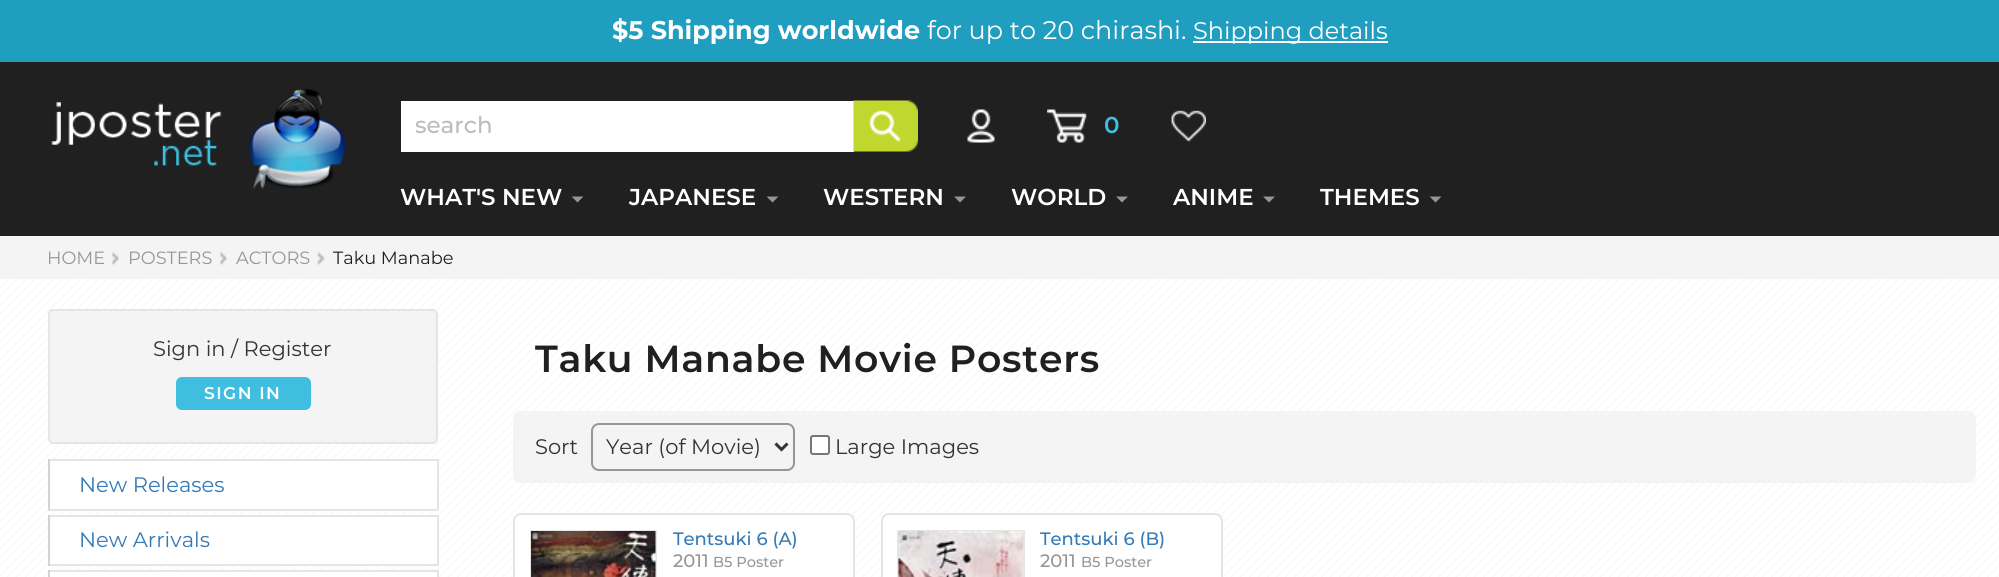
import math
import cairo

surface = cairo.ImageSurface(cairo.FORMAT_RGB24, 1999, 577)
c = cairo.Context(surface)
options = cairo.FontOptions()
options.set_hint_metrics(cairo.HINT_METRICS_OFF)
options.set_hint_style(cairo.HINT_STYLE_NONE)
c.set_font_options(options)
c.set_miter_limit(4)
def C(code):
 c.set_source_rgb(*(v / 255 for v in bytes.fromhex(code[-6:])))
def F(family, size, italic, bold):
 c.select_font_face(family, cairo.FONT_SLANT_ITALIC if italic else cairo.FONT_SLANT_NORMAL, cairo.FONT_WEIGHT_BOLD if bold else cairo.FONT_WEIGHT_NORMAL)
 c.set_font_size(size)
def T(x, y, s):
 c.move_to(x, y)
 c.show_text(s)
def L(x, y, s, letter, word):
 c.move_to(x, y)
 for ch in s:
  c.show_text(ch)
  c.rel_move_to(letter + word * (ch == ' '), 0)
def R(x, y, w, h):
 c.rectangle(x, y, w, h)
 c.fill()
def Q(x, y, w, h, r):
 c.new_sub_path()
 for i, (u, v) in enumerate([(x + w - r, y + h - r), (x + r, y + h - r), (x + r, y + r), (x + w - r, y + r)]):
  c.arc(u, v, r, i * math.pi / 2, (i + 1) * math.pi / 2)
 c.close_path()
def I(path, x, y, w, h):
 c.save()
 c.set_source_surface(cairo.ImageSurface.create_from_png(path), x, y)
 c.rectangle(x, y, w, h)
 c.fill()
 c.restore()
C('ffffff')
c.paint()
C('209ebf')
R(0,0,1999,62)
F('Montserrat',25.5,0,1)
C('ffffff')
T(612,39,'$5 Shipping worldwide')
F('Montserrat',25.5,0,0)
T(927,39,'for up to 20 chirashi.')
R(1193,41,195,2)
F('Montserrat',24,0,0)
T(1193,39,'Shipping details')
C('202020')
R(0,62,1999,174)
I('1.png',51,88,294,101)
C('ffffff')
R(401,101,453,51)
c.save()
c.rectangle(416,111,435,29)
c.clip()
F('Montserrat Medium',23,0,0)
C('bcbcbc')
T(415,133,'search')
c.restore()
I('2.png',853,100,65,52)
I('3.png',967,109,28,34)
I('4.png',1047,109,40,34)
F('Montserrat SemiBold',23,0,0)
C('40bee0')
T(1104,133,'0')
I('5.png',1171,110,35,32)
C('ffffff')
T(400,205,'WHAT\'S NEW')
C('969696')
c.new_path()
c.move_to(571.5,196.5)
c.line_to(583.5,196.5)
c.line_to(577.5,202.5)
c.close_path()
c.fill()
C('ffffff')
T(629,205,'JAPANESE')
C('969696')
c.new_path()
c.move_to(766.5,196.5)
c.line_to(778.5,196.5)
c.line_to(772.5,202.5)
c.close_path()
c.fill()
C('ffffff')
T(823,205,'WESTERN')
C('969696')
c.new_path()
c.move_to(954,196.5)
c.line_to(966,196.5)
c.line_to(960,202.5)
c.close_path()
c.fill()
C('ffffff')
T(1011,205,'WORLD')
C('969696')
c.new_path()
c.move_to(1116,196.5)
c.line_to(1128,196.5)
c.line_to(1122,202.5)
c.close_path()
c.fill()
C('ffffff')
T(1173,205,'ANIME')
C('969696')
c.new_path()
c.move_to(1263,196.5)
c.line_to(1275,196.5)
c.line_to(1269,202.5)
c.close_path()
c.fill()
C('ffffff')
T(1320,205,'THEMES')
C('969696')
c.new_path()
c.move_to(1429.5,196.5)
c.line_to(1441.5,196.5)
c.line_to(1435.5,202.5)
c.close_path()
c.fill()
C('f4f4f4')
R(0,236,1999,43)
F('Montserrat',17.75,0,0)
C('969696')
T(47,264,'HOME')
I('6.png',112,252,7,14)
T(128,264,'POSTERS')
I('6.png',220,252,7,14)
T(236,264,'ACTORS')
I('7.png',317,252,8,14)
C('202020')
T(333,264,'Taku Manabe')
I('8.png',0,279,1999,298)
C('f4f4f4')
Q(49,310,388,133,4)
c.fill_preserve()
C('e5e5e5')
c.stroke()
F('Montserrat',21,0,0)
C('333333')
T(153,356,'Sign in / Register')
C('40bee0')
Q(176,377,135,33,6)
c.fill()
F('Montserrat SemiBold',17,0,0)
C('ffffff')
L(204,399,'SIGN IN',1.5,0)
R(50,461,387,48)
C('e5e5e5')
R(48,459,390,2)
R(437,459,2,51)
R(48,509,390,2)
C('d4d2d4')
R(48,459,2,51)
F('Montserrat',21,0,0)
C('337ab7')
T(79,492,'New Releases')
C('ffffff')
R(50,517,387,47)
C('e5e5e5')
R(48,515,390,2)
R(437,515,2,51)
R(48,564,390,2)
C('d4d2d4')
R(48,515,2,51)
C('337ab7')
T(79,547,'New Arrivals')
C('ffffff')
R(48,572,390,5)
C('e5e5e5')
R(48,570,390,2)
R(437,570,2,7)
C('d4d2d4')
R(48,570,2,7)
F('Montserrat SemiBold',37.75,0,0)
C('202020')
L(535,372,'Taku Manabe Movie Posters',.75,0)
C('f4f4f4')
Q(513,411,1463,72,8)
c.fill()
F('Montserrat',21,0,0)
C('333333')
T(535,454,'Sort')
Q(592,424,202,46,7)
C('969696')
c.stroke()
c.new_path()
c.move_to(775.5,443.5)
c.line_to(781.5,449.5)
c.line_to(787.5,443.5)
C('333333')
c.set_line_width(3)
c.stroke()
T(606,454,'Year (of Movie)')
C('ffffff')
Q(811,436,18,18,2)
c.fill_preserve()
C('767676')
c.set_line_width(2)
c.stroke()
C('333333')
T(835,454,'Large Images')
C('ffffff')
Q(514,514,340,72,7)
c.fill_preserve()
C('e5e5e5')
c.stroke()
c.rectangle(531,531,125,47)
c.stroke()
I('9.png',531,531,125,46)
F('Montserrat Medium',18,0,0)
C('337ab7')
T(673,545,'Tentsuki 6 (A)')
C('969696')
T(673,567,'2011')
F('Montserrat Medium',14.5,0,0)
T(713,567,'B5 Poster')
C('ffffff')
Q(882,514,340,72,7)
c.fill_preserve()
C('e5e5e5')
c.stroke()
c.rectangle(898,531,126,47)
c.stroke()
I('10.png',898,531,125,46)
F('Montserrat Medium',18,0,0)
C('337ab7')
T(1040,545,'Tentsuki 6 (B)')
C('969696')
T(1040,567,'2011')
F('Montserrat Medium',14.5,0,0)
T(1081,567,'B5 Poster')
surface.write_to_png('o.png')
